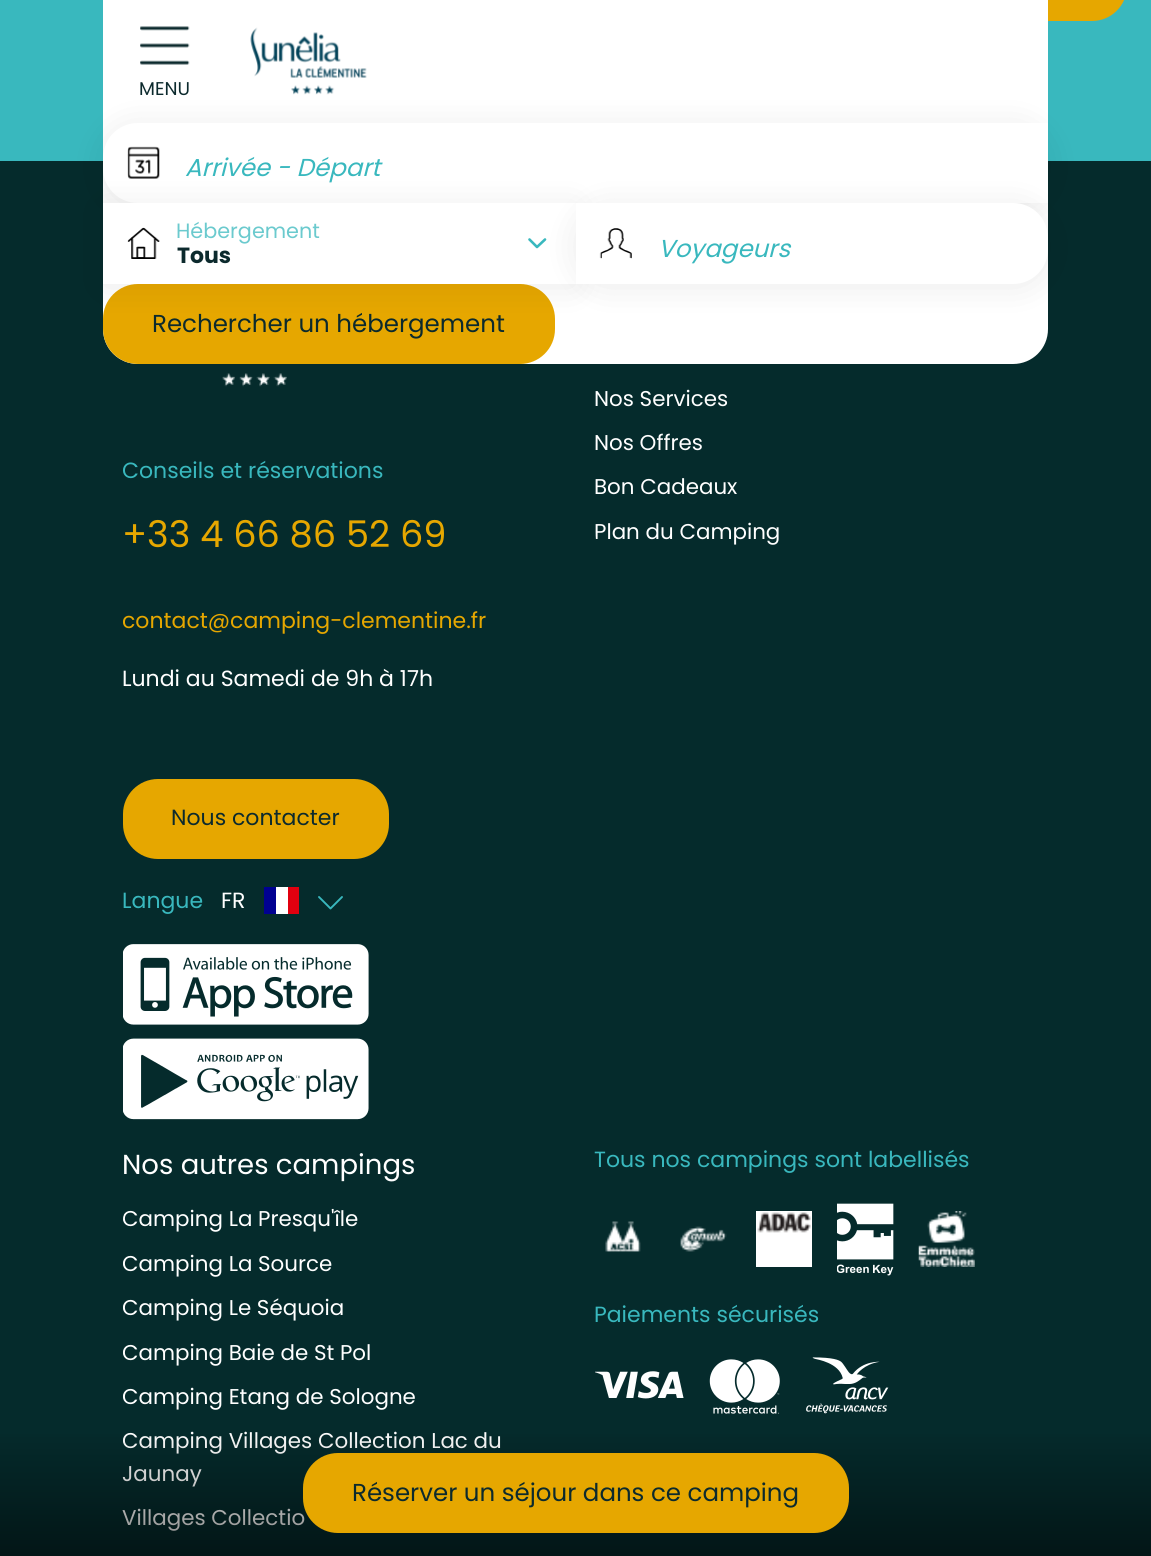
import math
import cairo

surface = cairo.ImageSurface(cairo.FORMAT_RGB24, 1151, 1556)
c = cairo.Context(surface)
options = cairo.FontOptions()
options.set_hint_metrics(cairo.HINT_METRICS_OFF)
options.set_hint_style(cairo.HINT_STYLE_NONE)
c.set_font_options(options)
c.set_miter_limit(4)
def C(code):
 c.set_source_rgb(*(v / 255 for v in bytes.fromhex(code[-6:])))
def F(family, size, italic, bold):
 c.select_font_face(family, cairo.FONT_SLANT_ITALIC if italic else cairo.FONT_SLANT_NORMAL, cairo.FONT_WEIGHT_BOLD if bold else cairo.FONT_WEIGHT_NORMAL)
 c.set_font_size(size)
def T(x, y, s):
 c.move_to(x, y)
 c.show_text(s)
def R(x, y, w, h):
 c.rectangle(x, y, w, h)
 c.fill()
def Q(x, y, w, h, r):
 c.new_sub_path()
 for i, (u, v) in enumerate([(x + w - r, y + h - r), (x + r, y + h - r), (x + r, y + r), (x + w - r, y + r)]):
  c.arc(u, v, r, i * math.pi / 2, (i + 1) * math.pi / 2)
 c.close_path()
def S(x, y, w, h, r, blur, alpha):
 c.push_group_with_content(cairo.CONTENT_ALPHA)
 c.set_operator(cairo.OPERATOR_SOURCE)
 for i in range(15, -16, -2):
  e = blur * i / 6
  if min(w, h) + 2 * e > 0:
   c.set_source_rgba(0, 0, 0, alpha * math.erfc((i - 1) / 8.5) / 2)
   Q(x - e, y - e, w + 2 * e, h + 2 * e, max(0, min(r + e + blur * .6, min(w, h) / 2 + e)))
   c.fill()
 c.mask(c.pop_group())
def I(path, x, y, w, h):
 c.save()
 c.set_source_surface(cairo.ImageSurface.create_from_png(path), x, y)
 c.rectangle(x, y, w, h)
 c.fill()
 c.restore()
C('052b2c')
c.paint()
C('39b8be')
R(0,0,1151,161)
C('e6a700')
Q(765,-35,362,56,35)
c.fill()
C('ffffff')
c.new_path()
c.move_to(103,0)
c.line_to(1048,0)
c.line_to(1048,329)
c.curve_to(1048,348.5,1032.5,364,1013,364)
c.line_to(138,364)
c.curve_to(118.5,364,103,348.5,103,329)
c.close_path()
c.fill()
I('1.png',140,26,50,39)
F('Poppins',18.5,0,0)
C('0c2a2d')
T(139,95,'MENU')
I('2.png',250,27,117,68)
C('000000')
S(103,126,945,81,35,17.5,.08)
C('ffffff')
c.new_path()
c.move_to(138,123)
c.line_to(1048,123)
c.line_to(1048,203)
c.line_to(138,203)
c.curve_to(118.5,203,103,187.5,103,168)
c.line_to(103,158)
c.curve_to(103,138.5,118.5,123,138,123)
c.close_path()
c.fill()
I('3.png',127,146,33,33)
F('Poppins',24.5,1,0)
C('39b8be')
T(185,176,'Arrivée - Départ')
C('e6a700')
Q(103,284,452,80,35)
c.fill()
C('000000')
S(103,207,473,80,0,17.5,.08)
C('ffffff')
R(103,203,473,81)
I('4.png',127,227,33,32)
F('Poppins',20.75,0,0)
C('6bcace')
T(176,238,'Hébergement')
c.new_path()
c.move_to(529.5,239.5)
c.line_to(537,247)
c.line_to(545,239.5)
C('39b8be')
c.set_line_width(2.6)
c.set_line_cap(cairo.LINE_CAP_ROUND)
c.set_line_join(cairo.LINE_JOIN_ROUND)
c.stroke()
F('Poppins',22,0,1)
C('0c2a2d')
T(177,263,'Tous')
C('000000')
S(576,207,472,80,35,17.5,.08)
C('ffffff')
c.new_path()
c.move_to(576,203)
c.line_to(1013,203)
c.curve_to(1032.5,203,1048,218.5,1048,238)
c.line_to(1048,249)
c.curve_to(1048,268.5,1032.5,284,1013,284)
c.line_to(576,284)
c.close_path()
c.fill()
I('5.png',599,228,33,31)
F('Poppins',24.5,1,0)
C('39b8be')
T(658,257,'Voyageurs')
F('Poppins',24.5,0,0)
C('0c2a2d')
T(152,332,'Rechercher un hébergement')
I('6.png',222,373,65,14)
F('Poppins',22,0,0)
C('39b8be')
T(122,478,'Conseils et réservations')
F('Poppins',36.75,0,0)
C('e6a700')
T(122,547,'+33 4 66 86 52 69')
F('Poppins',22,0,0)
T(122,628,'contact@camping-clementine.fr')
C('ffffff')
T(122,686,'Lundi au Samedi de 9h à 17h')
C('e6a700')
Q(123,779,266,80,35)
c.fill()
C('0c2a2d')
T(171,825,'Nous contacter')
C('39b8be')
T(122,908,'Langue')
C('ffffff')
T(221,908,'FR')
R(276,887,12,27)
C('000091')
R(264,887,12,27)
C('e1000f')
R(288,887,11,27)
c.new_path()
c.move_to(319,897)
c.line_to(330.5,908.5)
c.line_to(342,897)
C('39b8be')
c.set_line_width(1.9)
c.stroke()
I('7.png',123,944,246,81)
I('8.png',123,1038,246,82)
F('Poppins',21.4,0,0)
C('ffffff')
T(594,406,'Nos Services')
T(594,450,'Nos Offres')
T(594,494,'Bon Cadeaux')
c.save()
Q(595,277,436,290,35)
c.clip()
T(594,539,'Plan du Camping')
c.restore()
F('Poppins',27.5,0,0)
T(122,1174,'Nos autres campings')
c.save()
Q(123,1185,435,367,35)
c.clip()
F('Poppins',21.4,0,0)
T(122,1226,'Camping La Presqu\'île')
T(122,1271,'Camping La Source')
T(122,1315,'Camping Le Séquoia')
T(122,1360,'Camping Baie de St Pol')
T(122,1404,'Camping Etang de Sologne')
T(122,1448,'Camping Villages Collection Lac du')
c.restore()
F('Poppins',21.4,0,0)
T(122,1481,'Jaunay')
T(122,1525,'Villages Collectio')
F('Poppins',22,0,0)
C('39b8be')
T(594,1167,'Tous nos campings sont labellisés')
I('9.png',605,1221,36,31)
I('10.png',680,1226,47,26)
I('11.png',756,1211,56,56)
I('12.png',837,1203,57,73)
I('13.png',918,1211,57,56)
T(594,1322,'Paiements sécurisés')
I('14.png',595,1371,89,28)
I('15.png',709,1359,71,55)
I('16.png',806,1357,83,57)
gradient = cairo.LinearGradient(576,1428,576,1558)
gradient.add_color_stop_rgba(0,0,0,0,0)
gradient.add_color_stop_rgba(1,0,0,0,.5)
c.set_source(gradient)
R(0,1434,1151,122)
C('e6a700')
Q(303,1453,546,80,35)
c.fill()
F('Poppins',24.5,0,0)
C('0c2a2d')
T(352,1501,'Réserver un séjour dans ce camping')
surface.write_to_png('o.png')
